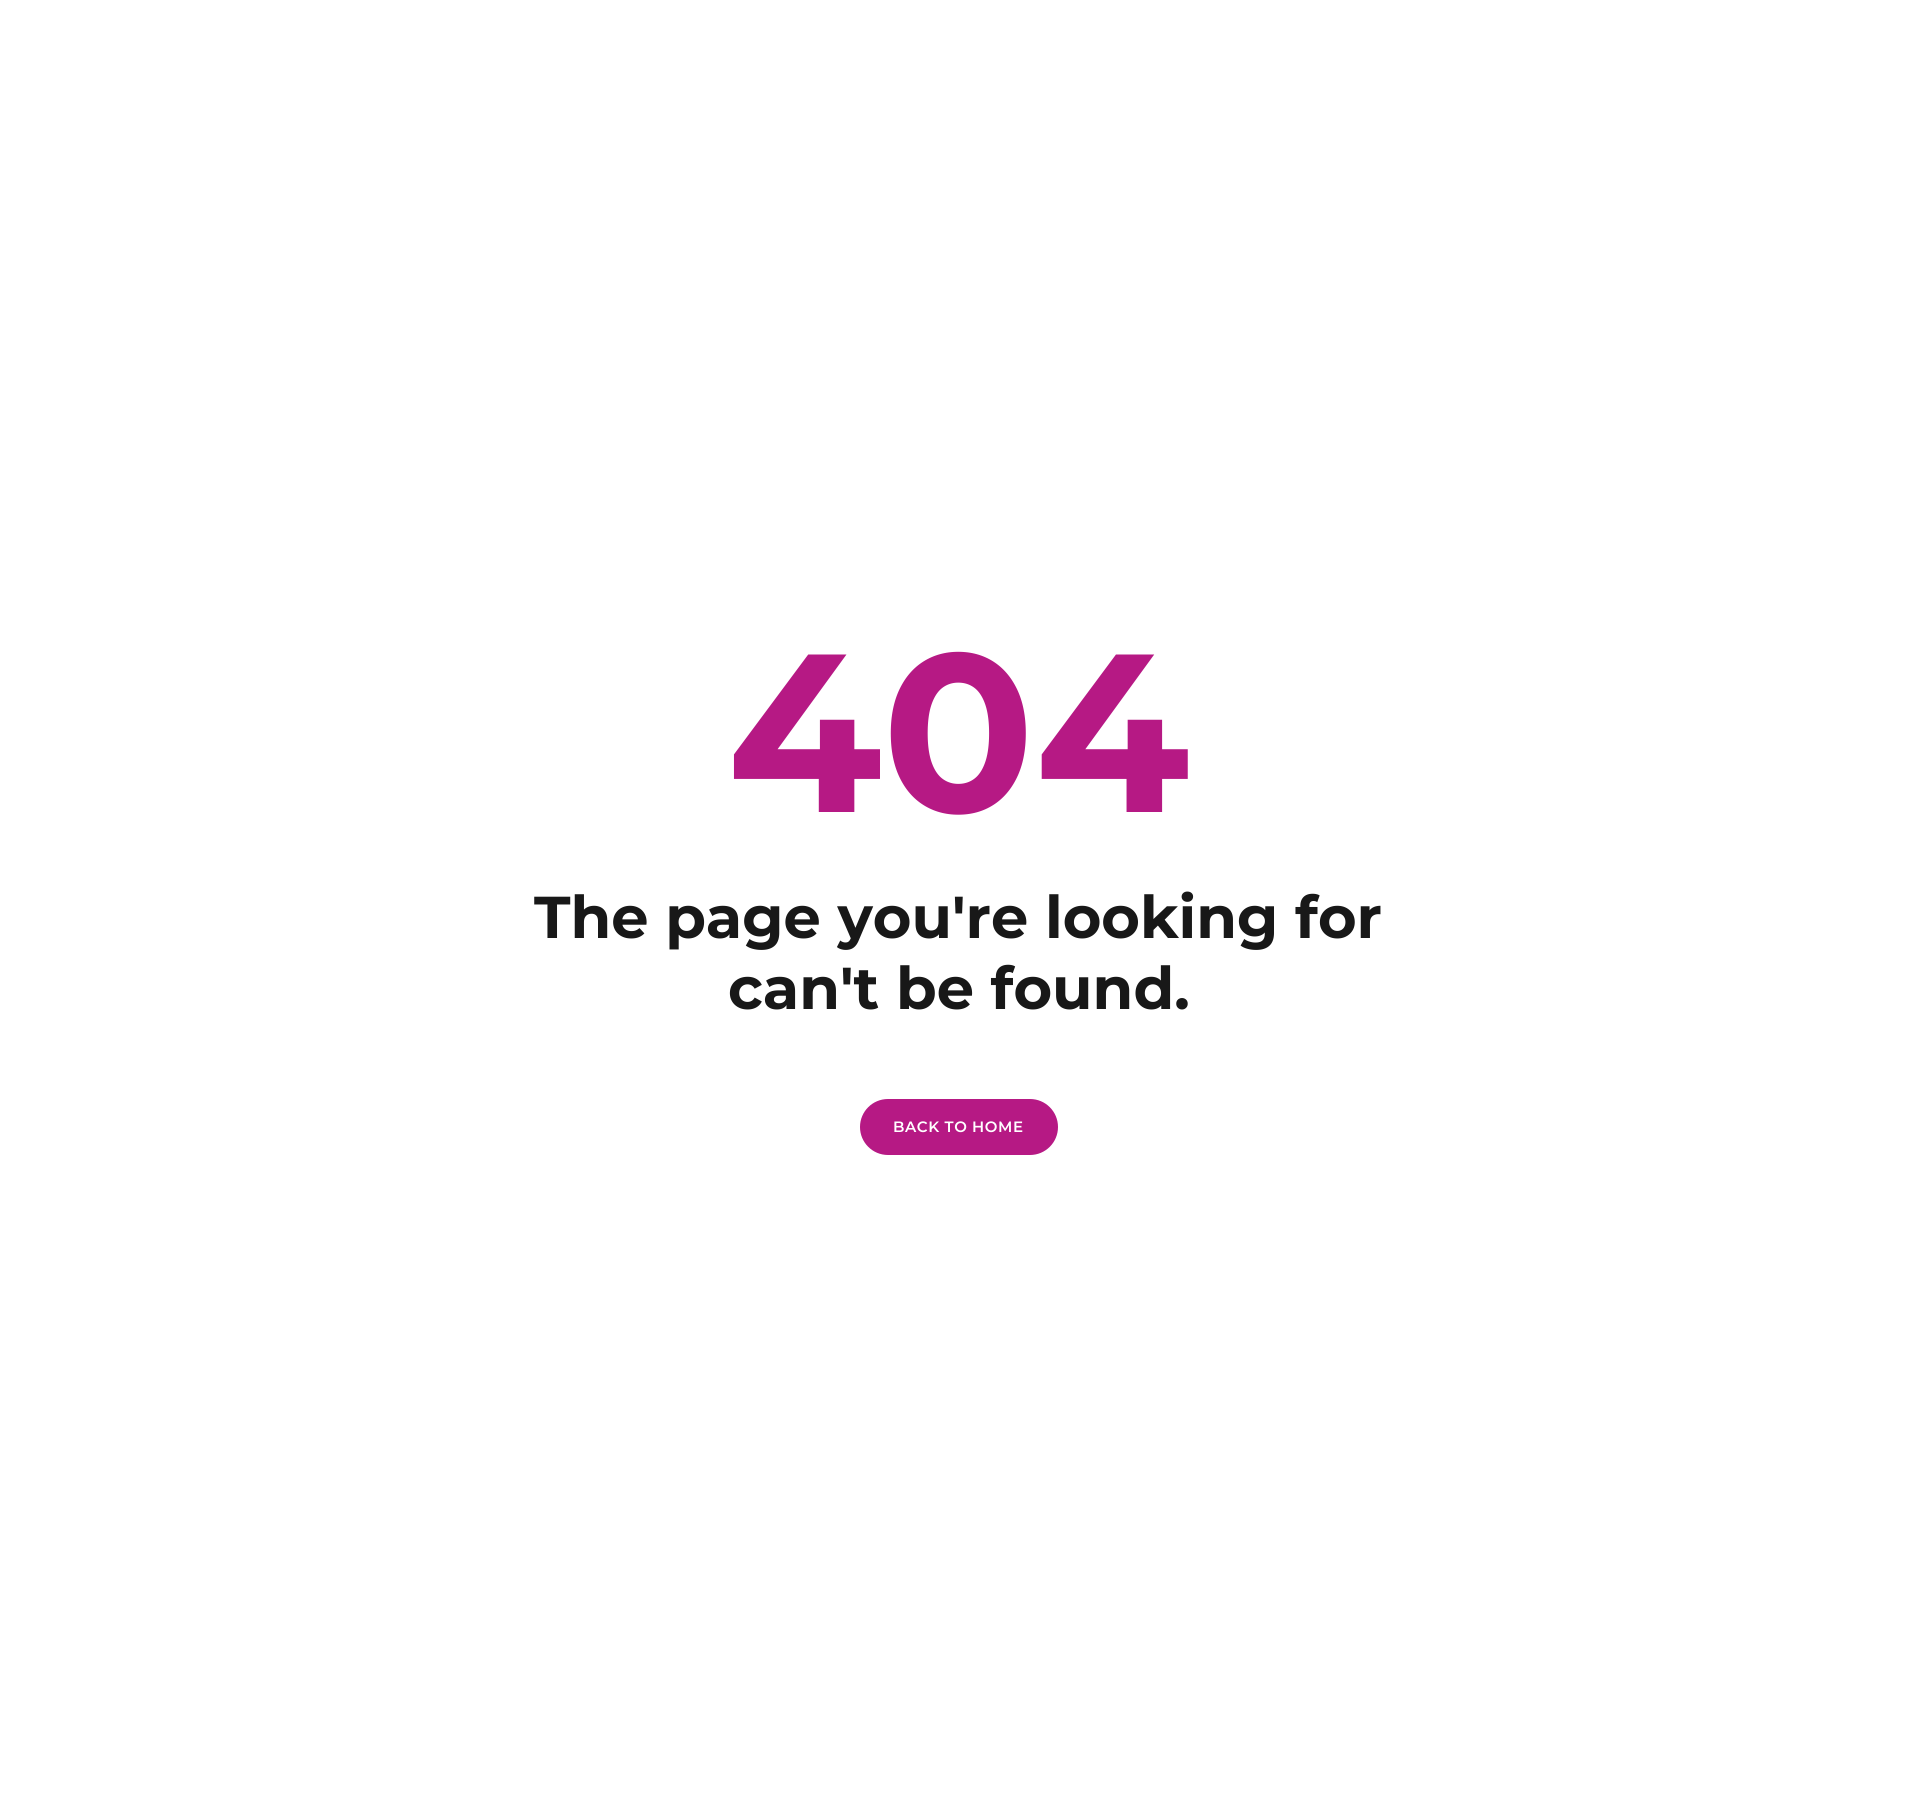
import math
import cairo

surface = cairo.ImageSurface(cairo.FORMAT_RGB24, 1917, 1815)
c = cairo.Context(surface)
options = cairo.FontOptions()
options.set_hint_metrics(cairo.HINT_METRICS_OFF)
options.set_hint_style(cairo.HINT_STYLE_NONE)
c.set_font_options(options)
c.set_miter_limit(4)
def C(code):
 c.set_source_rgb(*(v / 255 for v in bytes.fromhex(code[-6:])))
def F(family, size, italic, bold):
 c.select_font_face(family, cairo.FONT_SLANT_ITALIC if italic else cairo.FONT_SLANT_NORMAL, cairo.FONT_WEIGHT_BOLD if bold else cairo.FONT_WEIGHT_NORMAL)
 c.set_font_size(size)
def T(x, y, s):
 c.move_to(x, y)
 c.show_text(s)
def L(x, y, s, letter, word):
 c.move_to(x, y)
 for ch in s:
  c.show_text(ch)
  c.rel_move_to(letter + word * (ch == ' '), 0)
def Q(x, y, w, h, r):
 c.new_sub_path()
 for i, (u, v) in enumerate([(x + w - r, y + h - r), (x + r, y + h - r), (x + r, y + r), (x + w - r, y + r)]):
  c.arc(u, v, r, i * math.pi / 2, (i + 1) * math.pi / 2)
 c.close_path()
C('ffffff')
c.paint()
F('Montserrat',225,0,1)
C('b61984')
T(727,812,'404')
F('Montserrat',59,0,1)
C('181818')
T(534,938,'The page you\'re looking for')
T(728,1009,'can\'t be found.')
C('b61984')
Q(860,1099,198,56,28)
c.fill()
F('Montserrat SemiBold',15,0,0)
C('ffffff')
L(893,1132,'BACK TO HOME',.6,0)
surface.write_to_png('o.png')
